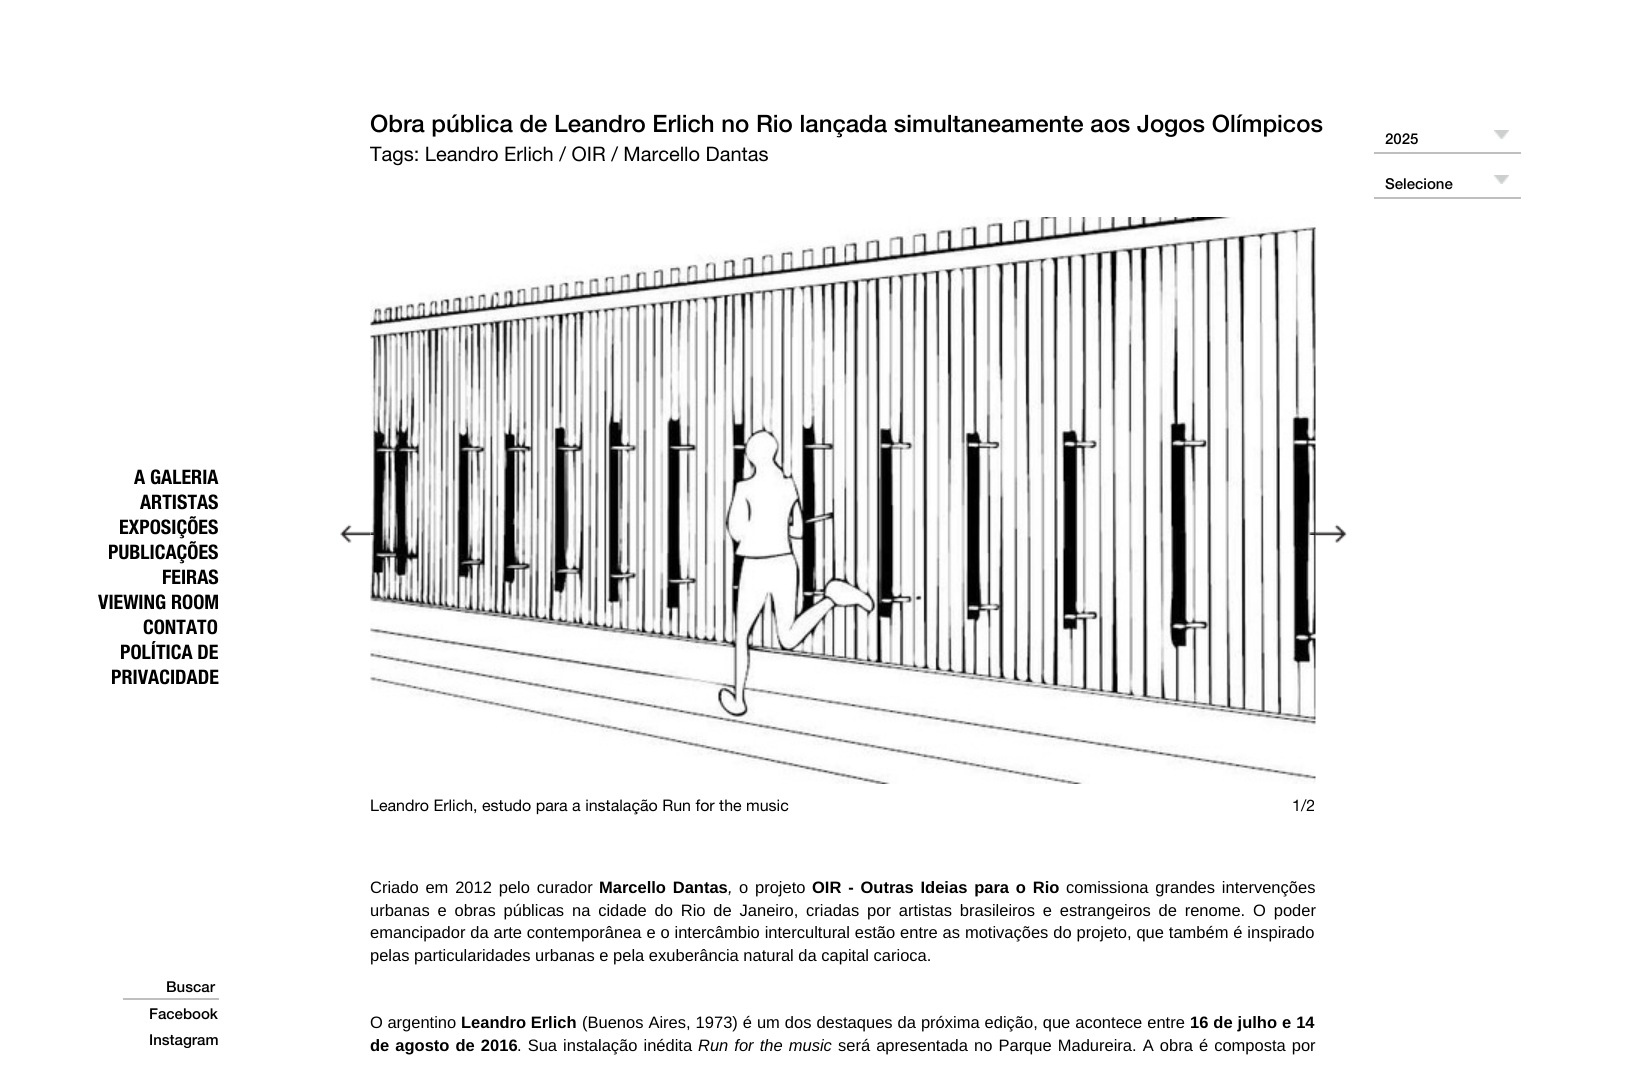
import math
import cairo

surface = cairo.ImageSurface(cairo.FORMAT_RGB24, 1636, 1066)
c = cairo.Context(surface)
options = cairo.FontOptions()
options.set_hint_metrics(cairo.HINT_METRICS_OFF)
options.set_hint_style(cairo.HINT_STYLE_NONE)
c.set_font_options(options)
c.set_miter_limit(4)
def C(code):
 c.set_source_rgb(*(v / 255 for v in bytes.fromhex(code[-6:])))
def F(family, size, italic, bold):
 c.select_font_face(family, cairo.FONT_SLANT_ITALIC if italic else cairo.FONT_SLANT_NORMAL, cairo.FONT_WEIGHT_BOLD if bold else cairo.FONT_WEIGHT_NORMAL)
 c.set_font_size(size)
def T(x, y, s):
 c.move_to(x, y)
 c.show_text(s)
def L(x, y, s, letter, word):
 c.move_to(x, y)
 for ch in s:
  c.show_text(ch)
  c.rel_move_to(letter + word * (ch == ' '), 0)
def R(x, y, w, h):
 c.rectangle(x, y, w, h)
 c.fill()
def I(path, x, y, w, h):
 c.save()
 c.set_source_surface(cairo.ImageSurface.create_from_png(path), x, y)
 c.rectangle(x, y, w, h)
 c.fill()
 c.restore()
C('ffffff')
c.paint()
F('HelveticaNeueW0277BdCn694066',20,0,0)
C('000000')
T(134,484,'A GALERIA')
T(140,509,'ARTISTAS')
T(119,534,'EXPOSIÇÕES')
T(108,559,'PUBLICAÇÕES')
T(162,584,'FEIRAS')
T(98,609,'VIEWING ROOM')
T(143,634,'CONTATO')
T(120,659,'POLÍTICA DE')
T(111,684,'PRIVACIDADE')
C('bfbfbf')
R(123,998,96,2)
F('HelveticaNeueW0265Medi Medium',15,0,0)
C('000000')
T(166,992,'Buscar')
T(149,1019,'Facebook')
T(149,1045,'Instagram')
F('HelveticaNeueW0265Medi Medium',24,0,0)
T(370,132,'Obra pública de Leandro Erlich no Rio lançada simultaneamente aos Jogos Olímpicos')
F('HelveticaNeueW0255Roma',20,0,0)
T(370,161,'Tags: Leandro Erlich / OIR / Marcello Dantas')
I('1.png',340,524,31,19)
I('2.png',1315,524,32,19)
I('3.png',370,217,946,567)
I('4.png',370,532,6,3)
I('5.png',1309,532,7,3)
F('HelveticaNeueW0255Roma',16,0,0)
T(370,811,'Leandro Erlich, estudo para a instalação Run for the music')
T(1292,811,'1/2')
F('Liberation Sans',16.5,0,0)
L(370,893,'Criado em 2012 pelo curador',0,2.25)
F('Liberation Sans',16.5,0,1)
L(599,893,'Marcello Dantas',0,2.25)
F('Liberation Sans',16.5,1,0)
T(728,893,',')
F('Liberation Sans',16.5,0,0)
L(739,893,'o projeto',0,2.25)
F('Liberation Sans',16.5,0,1)
L(812,893,'OIR - Outras Ideias para o Rio',0,2.25)
F('Liberation Sans',16.5,0,0)
L(1066,893,'comissiona grandes intervenções',0,2.25)
L(370,916,'urbanas e obras públicas na cidade do Rio de Janeiro, criadas por artistas brasileiros e estrangeiros de renome. O poder',0,3.25)
L(370,938,'emancipador da arte contemporânea e o intercâmbio intercultural estão entre as motivações do projeto, que também é inspirado',0,.3)
T(370,961,'pelas particularidades urbanas e pela exuberância natural da capital carioca.')
T(370,1028,'O argentino')
F('Liberation Sans',16.5,0,1)
T(461,1028,'Leandro Erlich')
F('Liberation Sans',16.5,0,0)
L(582,1028,'(Buenos Aires, 1973) é um dos destaques da próxima edição, que acontece entre',0,.4)
F('Liberation Sans',16.5,0,1)
L(1190,1028,'16 de julho e 14',0,.4)
L(370,1051,'de agosto de 2016',0,1.5)
F('Liberation Sans',16.5,0,0)
L(517,1051,'. Sua instalação inédita',0,1.5)
F('Liberation Sans',16.5,1,0)
L(698,1051,'Run for the music',0,1.5)
F('Liberation Sans',16.5,0,0)
L(838,1051,'será apresentada no Parque Madureira. A obra é composta por',0,1.5)
I('6.png',1494,130,15,9)
C('bfbfbf')
R(1374,152,147,2)
F('HelveticaNeueW0265Medi Medium',15,0,0)
C('000000')
T(1385,144,'2025')
I('6.png',1494,175,15,9)
C('bfbfbf')
R(1374,197,147,2)
C('000000')
T(1385,189,'Selecione')
surface.write_to_png('o.png')
